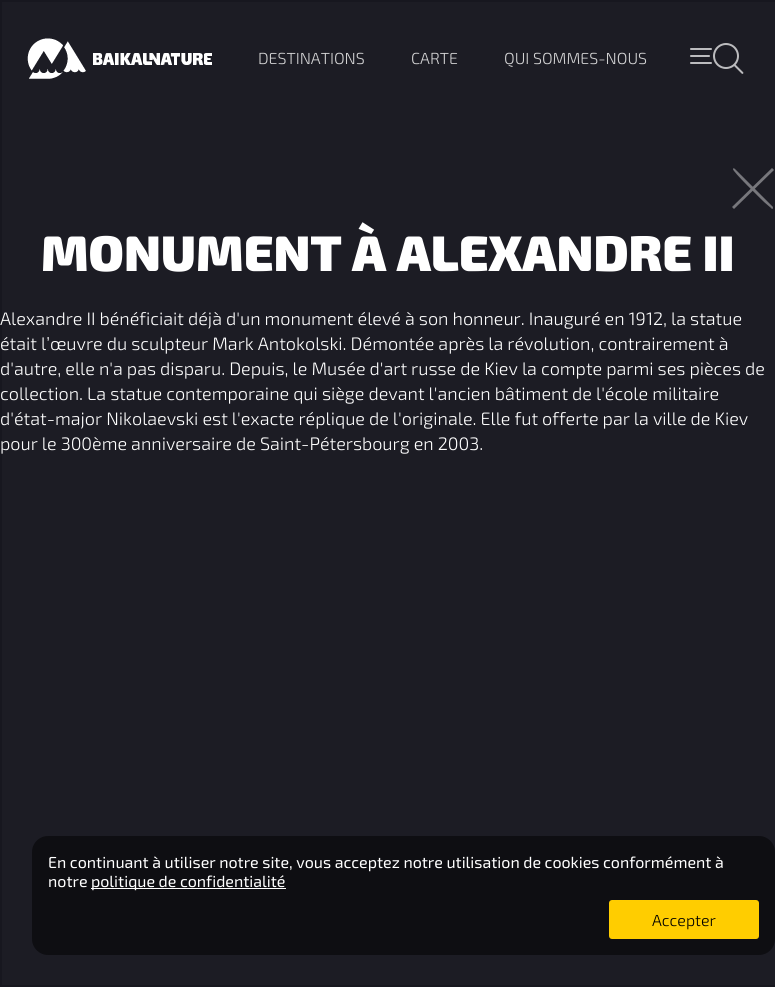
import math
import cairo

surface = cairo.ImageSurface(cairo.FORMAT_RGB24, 775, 987)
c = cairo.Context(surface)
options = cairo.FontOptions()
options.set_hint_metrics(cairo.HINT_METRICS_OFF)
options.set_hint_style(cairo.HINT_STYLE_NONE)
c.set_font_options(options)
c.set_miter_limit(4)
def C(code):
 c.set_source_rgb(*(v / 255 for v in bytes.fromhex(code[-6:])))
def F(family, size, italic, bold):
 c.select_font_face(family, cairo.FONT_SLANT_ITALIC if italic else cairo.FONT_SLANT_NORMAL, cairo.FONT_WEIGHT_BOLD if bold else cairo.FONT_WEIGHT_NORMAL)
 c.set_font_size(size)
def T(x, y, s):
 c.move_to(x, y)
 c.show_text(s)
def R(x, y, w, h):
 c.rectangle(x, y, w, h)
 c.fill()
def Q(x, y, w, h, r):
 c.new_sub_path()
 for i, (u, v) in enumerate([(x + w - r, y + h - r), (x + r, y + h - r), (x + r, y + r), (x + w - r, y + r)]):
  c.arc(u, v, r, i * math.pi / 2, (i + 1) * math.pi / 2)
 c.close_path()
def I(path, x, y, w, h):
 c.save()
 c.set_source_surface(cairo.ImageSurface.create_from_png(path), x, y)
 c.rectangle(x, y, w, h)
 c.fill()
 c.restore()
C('1c1c24')
c.paint()
c.rectangle(1,1,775,985)
C('17171f')
c.stroke()
I('1.png',27,38,185,41)
F('Exo 2 Light',16,0,0)
C('d2d2d3')
T(258,64,'DESTINATIONS')
T(411,64,'CARTE')
T(504,64,'QUI SOMMES-NOUS')
I('2.png',690,43,54,31)
C('77777c')
c.new_path()
c.move_to(735,169)
c.line_to(773,207)
c.curve_to(773,208,773,209,772,209)
c.line_to(771,208)
c.line_to(764,202)
c.curve_to(761,199,732,171,733,169)
c.curve_to(733,168,734,168,735,169)
c.close_path()
c.fill()
c.new_path()
c.move_to(732,207)
c.line_to(772,168)
c.line_to(774,170)
c.line_to(734,209)
c.close_path()
c.fill()
F('Exo 2 Black',50,0,0)
C('ffffff')
T(41,271,'MONUMENT À ALEXANDRE II')
F('Exo 2 Light',18,0,0)
T(0,325,'Alexandre II bénéficiait déjà d\'un monument élevé à son honneur. Inauguré en 1912, la statue')
T(0,350,'était l’œuvre du sculpteur Mark Antokolski. Démontée après la révolution, contrairement à')
T(0,375,'d\'autre, elle n\'a pas disparu. Depuis, le Musée d\'art russe de Kiev la compte parmi ses pièces de')
T(0,400,'collection. La statue contemporaine qui siège devant l\'ancien bâtiment de l\'école militaire')
T(0,425,'d\'état-major Nikolaevski est l\'exacte réplique de l\'originale. Elle fut offerte par la ville de Kiev')
T(0,450,'pour le 300ème anniversaire de Saint-Pétersbourg en 2003.')
C('0e0e12')
Q(32,836,743,119,16)
c.fill()
F('Exo 2',16,0,0)
C('ffffff')
T(48,868,'En continuant à utiliser notre site, vous acceptez notre utilisation de cookies conformément à')
T(48,887,'notre')
R(91,888,195,1)
T(91,887,'politique de confidentialité')
C('ffcd00')
Q(609,900,150,39,3)
c.fill()
F('Exo 2 Light',16,0,0)
C('000000')
T(652,926,'Accepter')
surface.write_to_png('o.png')
